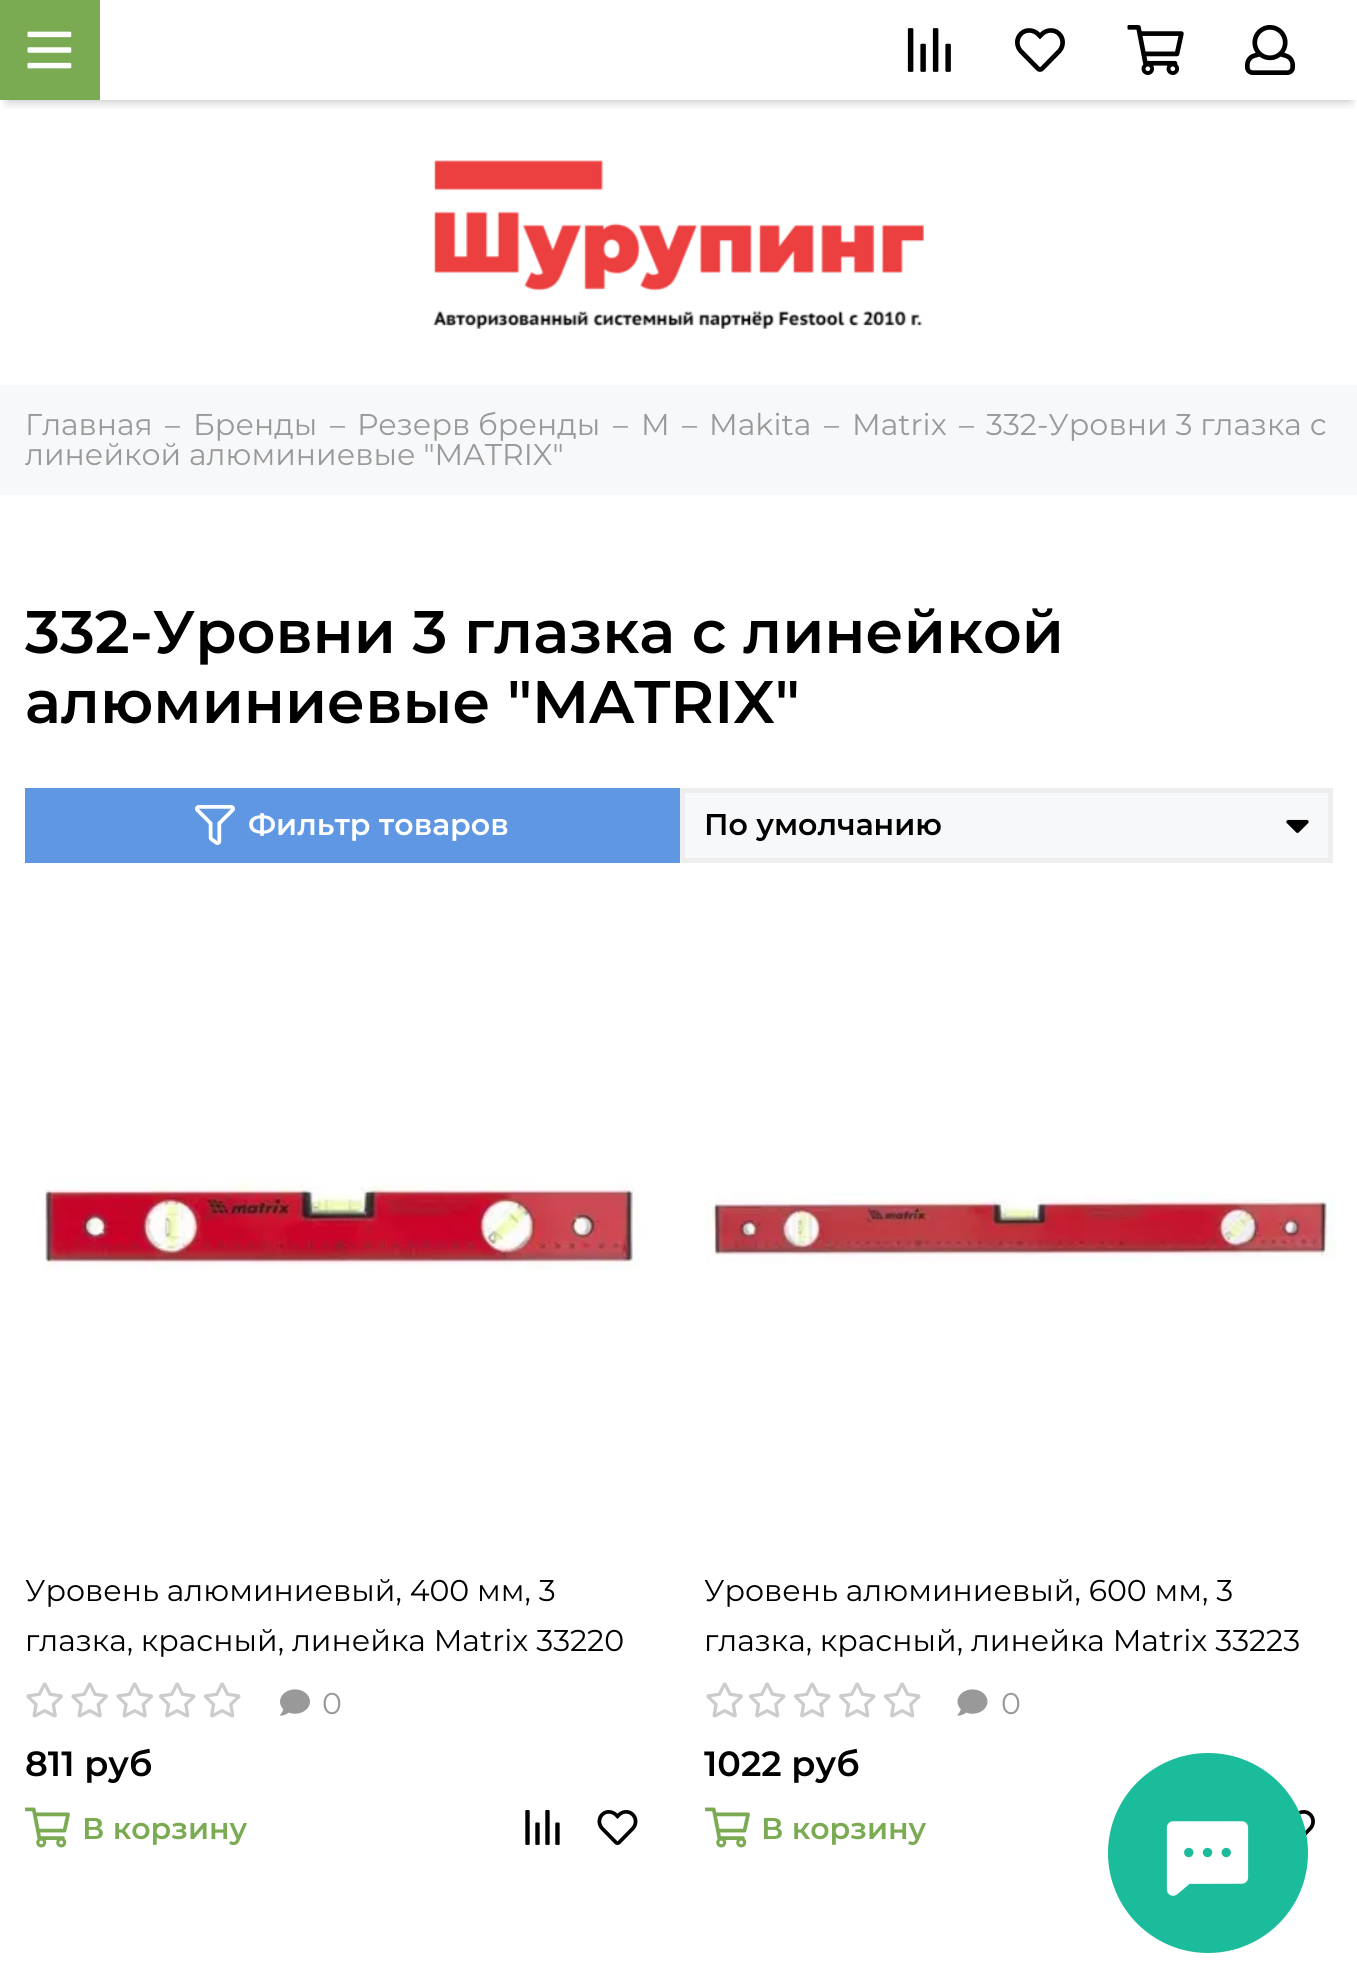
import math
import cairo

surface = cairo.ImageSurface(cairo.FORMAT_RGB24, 1357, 1976)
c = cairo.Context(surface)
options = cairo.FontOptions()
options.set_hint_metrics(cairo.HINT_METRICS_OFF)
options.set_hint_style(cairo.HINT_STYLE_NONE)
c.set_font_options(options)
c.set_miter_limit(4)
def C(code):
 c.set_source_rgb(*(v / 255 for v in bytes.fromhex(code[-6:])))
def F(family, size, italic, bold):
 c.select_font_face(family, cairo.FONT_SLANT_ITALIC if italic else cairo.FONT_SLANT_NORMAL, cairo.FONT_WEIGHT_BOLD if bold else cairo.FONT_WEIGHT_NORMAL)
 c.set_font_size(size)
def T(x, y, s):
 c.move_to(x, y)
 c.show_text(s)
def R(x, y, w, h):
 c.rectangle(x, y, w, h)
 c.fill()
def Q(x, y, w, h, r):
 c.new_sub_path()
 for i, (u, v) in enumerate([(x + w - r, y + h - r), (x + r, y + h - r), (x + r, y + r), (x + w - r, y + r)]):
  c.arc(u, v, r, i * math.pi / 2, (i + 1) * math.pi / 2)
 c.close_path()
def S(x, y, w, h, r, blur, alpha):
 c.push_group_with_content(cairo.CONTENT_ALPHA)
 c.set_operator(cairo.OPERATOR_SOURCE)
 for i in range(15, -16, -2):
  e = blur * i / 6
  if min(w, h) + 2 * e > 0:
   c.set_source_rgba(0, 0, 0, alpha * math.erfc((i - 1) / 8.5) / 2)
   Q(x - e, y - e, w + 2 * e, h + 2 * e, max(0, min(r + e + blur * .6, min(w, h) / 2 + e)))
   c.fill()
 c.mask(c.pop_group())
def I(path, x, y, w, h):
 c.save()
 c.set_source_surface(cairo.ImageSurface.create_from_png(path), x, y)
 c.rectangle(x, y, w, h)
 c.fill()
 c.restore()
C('ffffff')
c.paint()
c.save()
c.rectangle(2,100,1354,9)
c.clip()
C('000000')
S(8,15,1342,85,0,6,.3)
c.restore()
C('7aab52')
R(0,0,100,100)
I('1.png',27,31,45,38)
I('2.png',907,28,44,44)
I('3.png',1015,28,50,44)
I('4.png',1127,25,57,50)
I('5.png',1245,25,50,50)
I('6.png',433,160,491,169)
C('f7f8fa')
R(0,385,1357,110)
F('Montserrat',30,0,0)
C('999999')
T(25,435,'Главная')
T(165,435,'–')
T(193,435,'Бренды')
T(330,435,'–')
T(357,435,'Резерв бренды')
T(613,435,'–')
T(641,435,'M')
T(682,435,'–')
T(709,435,'Makita')
T(824,435,'–')
T(852,435,'Matrix')
T(959,435,'–')
T(986,435,'332-Уровни 3 глазка с')
T(25,465,'линейкой алюминиевые "MATRIX"')
F('Montserrat SemiBold',60,0,0)
C('000000')
T(25,653,'332-Уровни 3 глазка с линейкой')
T(25,723,'алюминиевые "MATRIX"')
C('5f97e3')
R(25,788,655,75)
I('7.png',195,805,40,40)
F('Montserrat SemiBold',30,0,0)
C('ffffff')
T(248,835,'Фильтр товаров')
C('f7f8fa')
R(685,793,643,65)
I('8.png',1286,819,23,14)
c.rectangle(682.5,790.5,648,70)
C('eeeeee')
c.set_line_width(5)
c.stroke()
C('000000')
T(704,835,'По умолчанию')
I('9.png',43,1181,598,89)
F('Montserrat',30,0,0)
T(25,1601,'Уровень алюминиевый, 400 мм, 3')
T(25,1651,'глазка, красный, линейка Matrix 33220')
I('10.png',26,1682,37,36)
I('10.png',71,1682,37,36)
I('10.png',116,1682,37,36)
I('11.png',159,1682,37,36)
I('11.png',204,1682,37,36)
I('12.png',280,1689,30,27)
C('999999')
T(322,1714,'0')
F('Montserrat SemiBold',35,0,0)
C('000000')
T(25,1776,'811 руб')
I('13.png',25,1807,45,41)
F('Montserrat SemiBold',30,0,0)
C('7aab52')
T(82,1839,'В корзину')
I('14.png',525,1810,35,35)
I('15.png',597,1810,41,35)
I('16.png',705,1192,630,71)
F('Montserrat',30,0,0)
C('000000')
T(704,1601,'Уровень алюминиевый, 600 мм, 3')
T(704,1651,'глазка, красный, линейка Matrix 33223')
I('10.png',706,1682,37,36)
I('11.png',749,1682,37,36)
I('11.png',794,1682,37,36)
I('11.png',839,1682,37,36)
I('11.png',884,1682,37,36)
I('17.png',957,1689,31,27)
C('999999')
T(1001,1714,'0')
F('Montserrat SemiBold',35,0,0)
C('000000')
T(704,1776,'1022 руб')
I('13.png',705,1807,45,41)
F('Montserrat SemiBold',30,0,0)
C('7aab52')
T(761,1839,'В корзину')
I('18.png',1298,1810,17,26)
C('1abc9c')
c.arc(1208,1853,100,0,2 * math.pi)
c.fill()
I('19.png',1166,1821,83,75)
surface.write_to_png('o.png')
